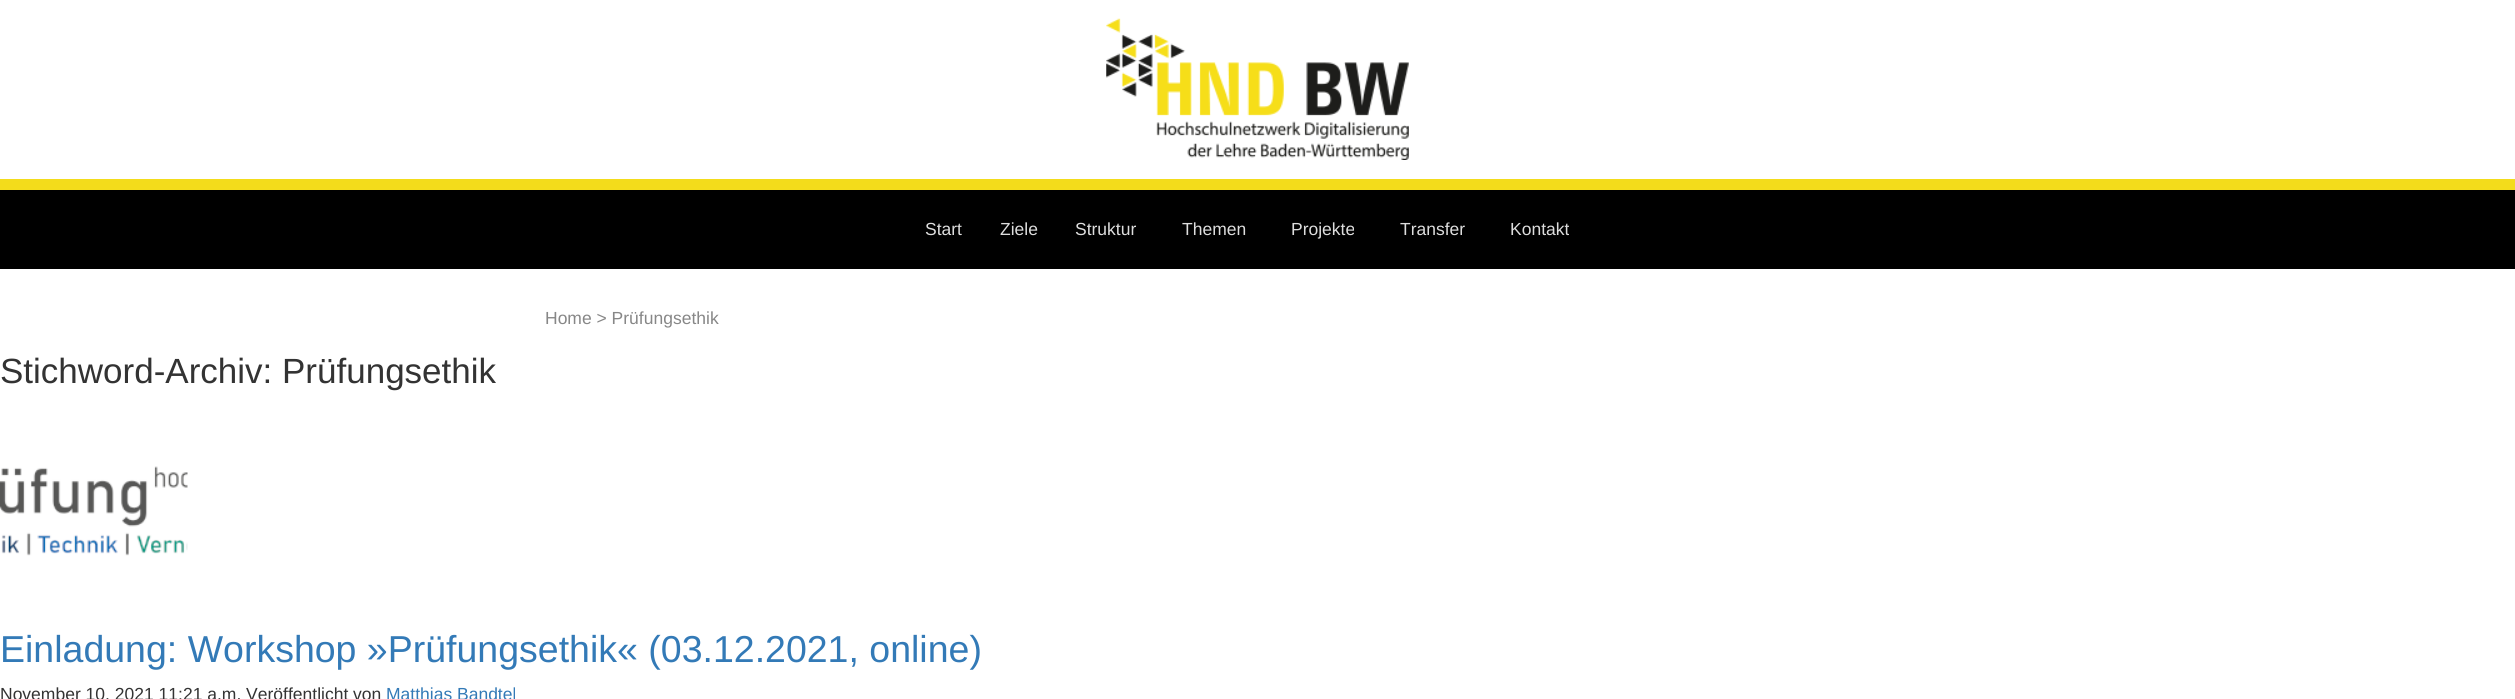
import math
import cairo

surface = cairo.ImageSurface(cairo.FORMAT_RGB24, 2515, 699)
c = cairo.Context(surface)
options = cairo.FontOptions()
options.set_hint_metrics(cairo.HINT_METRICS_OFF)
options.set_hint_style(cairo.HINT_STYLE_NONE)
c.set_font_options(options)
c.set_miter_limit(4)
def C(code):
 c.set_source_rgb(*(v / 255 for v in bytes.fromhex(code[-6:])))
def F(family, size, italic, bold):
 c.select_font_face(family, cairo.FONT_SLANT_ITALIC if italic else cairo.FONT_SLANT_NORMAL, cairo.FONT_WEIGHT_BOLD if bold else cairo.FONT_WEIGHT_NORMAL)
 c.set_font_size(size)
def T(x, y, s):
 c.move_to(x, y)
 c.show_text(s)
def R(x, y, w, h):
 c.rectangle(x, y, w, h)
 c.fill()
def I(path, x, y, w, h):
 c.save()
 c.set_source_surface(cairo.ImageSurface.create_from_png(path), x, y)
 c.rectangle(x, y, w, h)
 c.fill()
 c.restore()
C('ffffff')
c.paint()
I('1.png',1106,18,303,142)
C('f3dc1b')
R(0,179,2515,11)
C('000000')
R(0,190,2515,79)
F('Liberation Sans',17.5,0,0)
C('dddddd')
T(925,235,'Start')
T(1000,235,'Ziele')
T(1075,235,'Struktur')
T(1182,235,'Themen')
T(1291,235,'Projekte')
T(1400,235,'Transfer')
T(1510,235,'Kontakt')
C('878787')
T(545,324,'Home > Prüfungsethik')
F('Liberation Sans',35,0,0)
C('333333')
T(0,383,'Stichword-Archiv: Prüfungsethik')
I('2.png',0,466,188,90)
F('Liberation Sans',37.5,0,0)
C('337ab7')
T(0,662,'Einladung: Workshop »Prüfungsethik« (03.12.2021, online)')
F('Liberation Sans',17.5,0,0)
C('333333')
T(0,700,'November 10, 2021 11:21 a.m. Veröffentlicht von')
C('337ab7')
T(386,700,'Matthias Bandtel')
surface.write_to_png('o.png')
